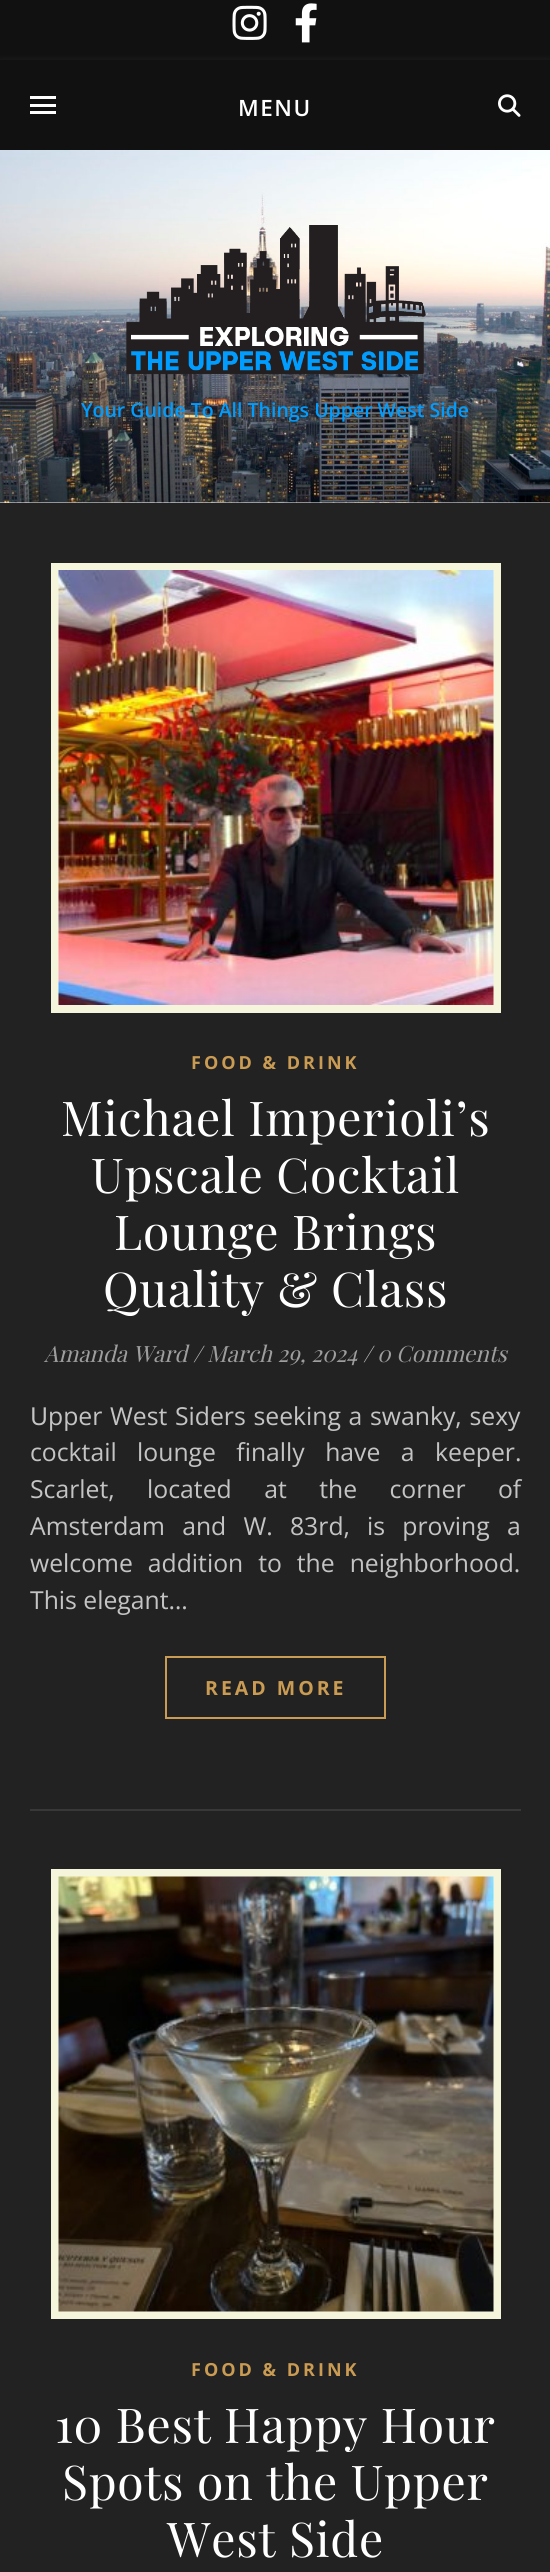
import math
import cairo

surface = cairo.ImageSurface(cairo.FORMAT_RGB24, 550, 2572)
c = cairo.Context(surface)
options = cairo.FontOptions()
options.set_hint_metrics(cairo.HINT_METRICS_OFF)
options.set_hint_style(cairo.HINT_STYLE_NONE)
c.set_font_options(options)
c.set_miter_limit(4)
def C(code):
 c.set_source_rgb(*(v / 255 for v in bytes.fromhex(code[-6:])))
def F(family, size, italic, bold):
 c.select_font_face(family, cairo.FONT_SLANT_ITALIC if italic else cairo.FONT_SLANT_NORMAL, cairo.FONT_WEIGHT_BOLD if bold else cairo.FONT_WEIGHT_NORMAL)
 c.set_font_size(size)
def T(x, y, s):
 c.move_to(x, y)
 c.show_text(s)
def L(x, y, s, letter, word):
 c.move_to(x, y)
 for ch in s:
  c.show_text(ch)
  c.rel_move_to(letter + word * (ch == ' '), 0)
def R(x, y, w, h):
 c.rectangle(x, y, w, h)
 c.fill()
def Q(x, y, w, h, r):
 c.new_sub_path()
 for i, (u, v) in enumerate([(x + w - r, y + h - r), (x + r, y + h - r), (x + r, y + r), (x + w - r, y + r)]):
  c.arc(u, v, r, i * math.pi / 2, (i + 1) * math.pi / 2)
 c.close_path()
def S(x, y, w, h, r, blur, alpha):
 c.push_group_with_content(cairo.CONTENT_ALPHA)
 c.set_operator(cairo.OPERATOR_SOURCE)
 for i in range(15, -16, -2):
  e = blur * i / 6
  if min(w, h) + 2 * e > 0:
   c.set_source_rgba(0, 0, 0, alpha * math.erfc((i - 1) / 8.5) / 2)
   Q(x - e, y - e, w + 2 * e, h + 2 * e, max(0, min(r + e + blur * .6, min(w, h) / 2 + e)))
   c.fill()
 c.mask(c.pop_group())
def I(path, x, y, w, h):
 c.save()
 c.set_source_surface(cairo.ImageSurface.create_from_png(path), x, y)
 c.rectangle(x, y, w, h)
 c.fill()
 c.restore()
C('222222')
c.paint()
C('111111')
R(0,0,550,60)
I('1.png',232,5,35,35)
I('2.png',295,3,22,40)
C('ffffff')
R(0,502,550,1)
I('4.png',0,150,550,353)
C('ffffff')
S(0,62,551,90,0,4,.1)
C('111111')
R(0,60,550,90)
C('ffffff')
R(30,96,26,3)
R(30,104,26,3)
R(30,111,26,3)
F('Open Sans SemiBold',22.5,0,0)
L(238,116,'MENU',1.5,0)
I('3.png',498,94,23,23)
I('5.png',126,225,300,150)
F('Open Sans SemiBold',19.5,0,0)
C('009dff')
T(81,417,'Your Guide To All Things Upper West Side')
C('383838')
R(30,1809,491,2)
c.rectangle(55,567,442,442)
C('f5f5dc')
c.set_line_width(8)
c.stroke()
I('6.png',58,570,436,435)
F('Open Sans',18,0,1)
C('ca9b52')
L(191,1069,'FOOD & DRINK',3,0)
F('Playfair Display',48,0,0)
C('ffffff')
L(61,1136,'Michael Imperioli’s',.75,0)
L(91,1193,'Upscale Cocktail',.75,0)
L(114,1250,'Lounge Brings',.75,0)
L(103,1307,'Quality & Class',.75,0)
F('Playfair Display',22.5,1,0)
C('9e9e9e')
T(44,1362,'Amanda Ward')
C('c4c4c4')
T(193,1362,'/')
C('9e9e9e')
T(207,1362,'March 29, 2024')
C('c4c4c4')
T(363,1362,'/')
C('9e9e9e')
T(377,1362,'0 Comments')
F('Noto Sans',24.75,0,0)
C('c4c4c4')
T(30,1425,'U')
F('Open Sans',24.75,0,0)
L(48,1425,'pper West Siders seeking a swanky, sexy',0,1.25)
L(30,1461,'cocktail lounge finally have a keeper.',0,14)
L(30,1498,'Scarlet, located at the corner of',0,26)
L(30,1535,'Amsterdam and W. 83rd, is proving a',0,10.75)
L(30,1572,'welcome addition to the neighborhood.',0,8.5)
T(30,1609,'This elegant…')
c.rectangle(166,1657,219,61)
C('ca9b52')
c.set_line_width(2)
c.stroke()
F('Open Sans',19.5,0,1)
L(205,1695,'READ MORE',3,0)
c.rectangle(55,1873,442,442)
C('f5f5dc')
c.set_line_width(8)
c.stroke()
I('7.png',58,1876,436,436)
F('Open Sans',18,0,1)
C('ca9b52')
L(191,2376,'FOOD & DRINK',3,0)
F('Playfair Display',48,0,0)
C('ffffff')
L(55,2443,'10 Best Happy Hour',.75,0)
L(62,2500,'Spots on the Upper',.75,0)
L(167,2557,'West Side',.75,0)
surface.write_to_png('o.png')
